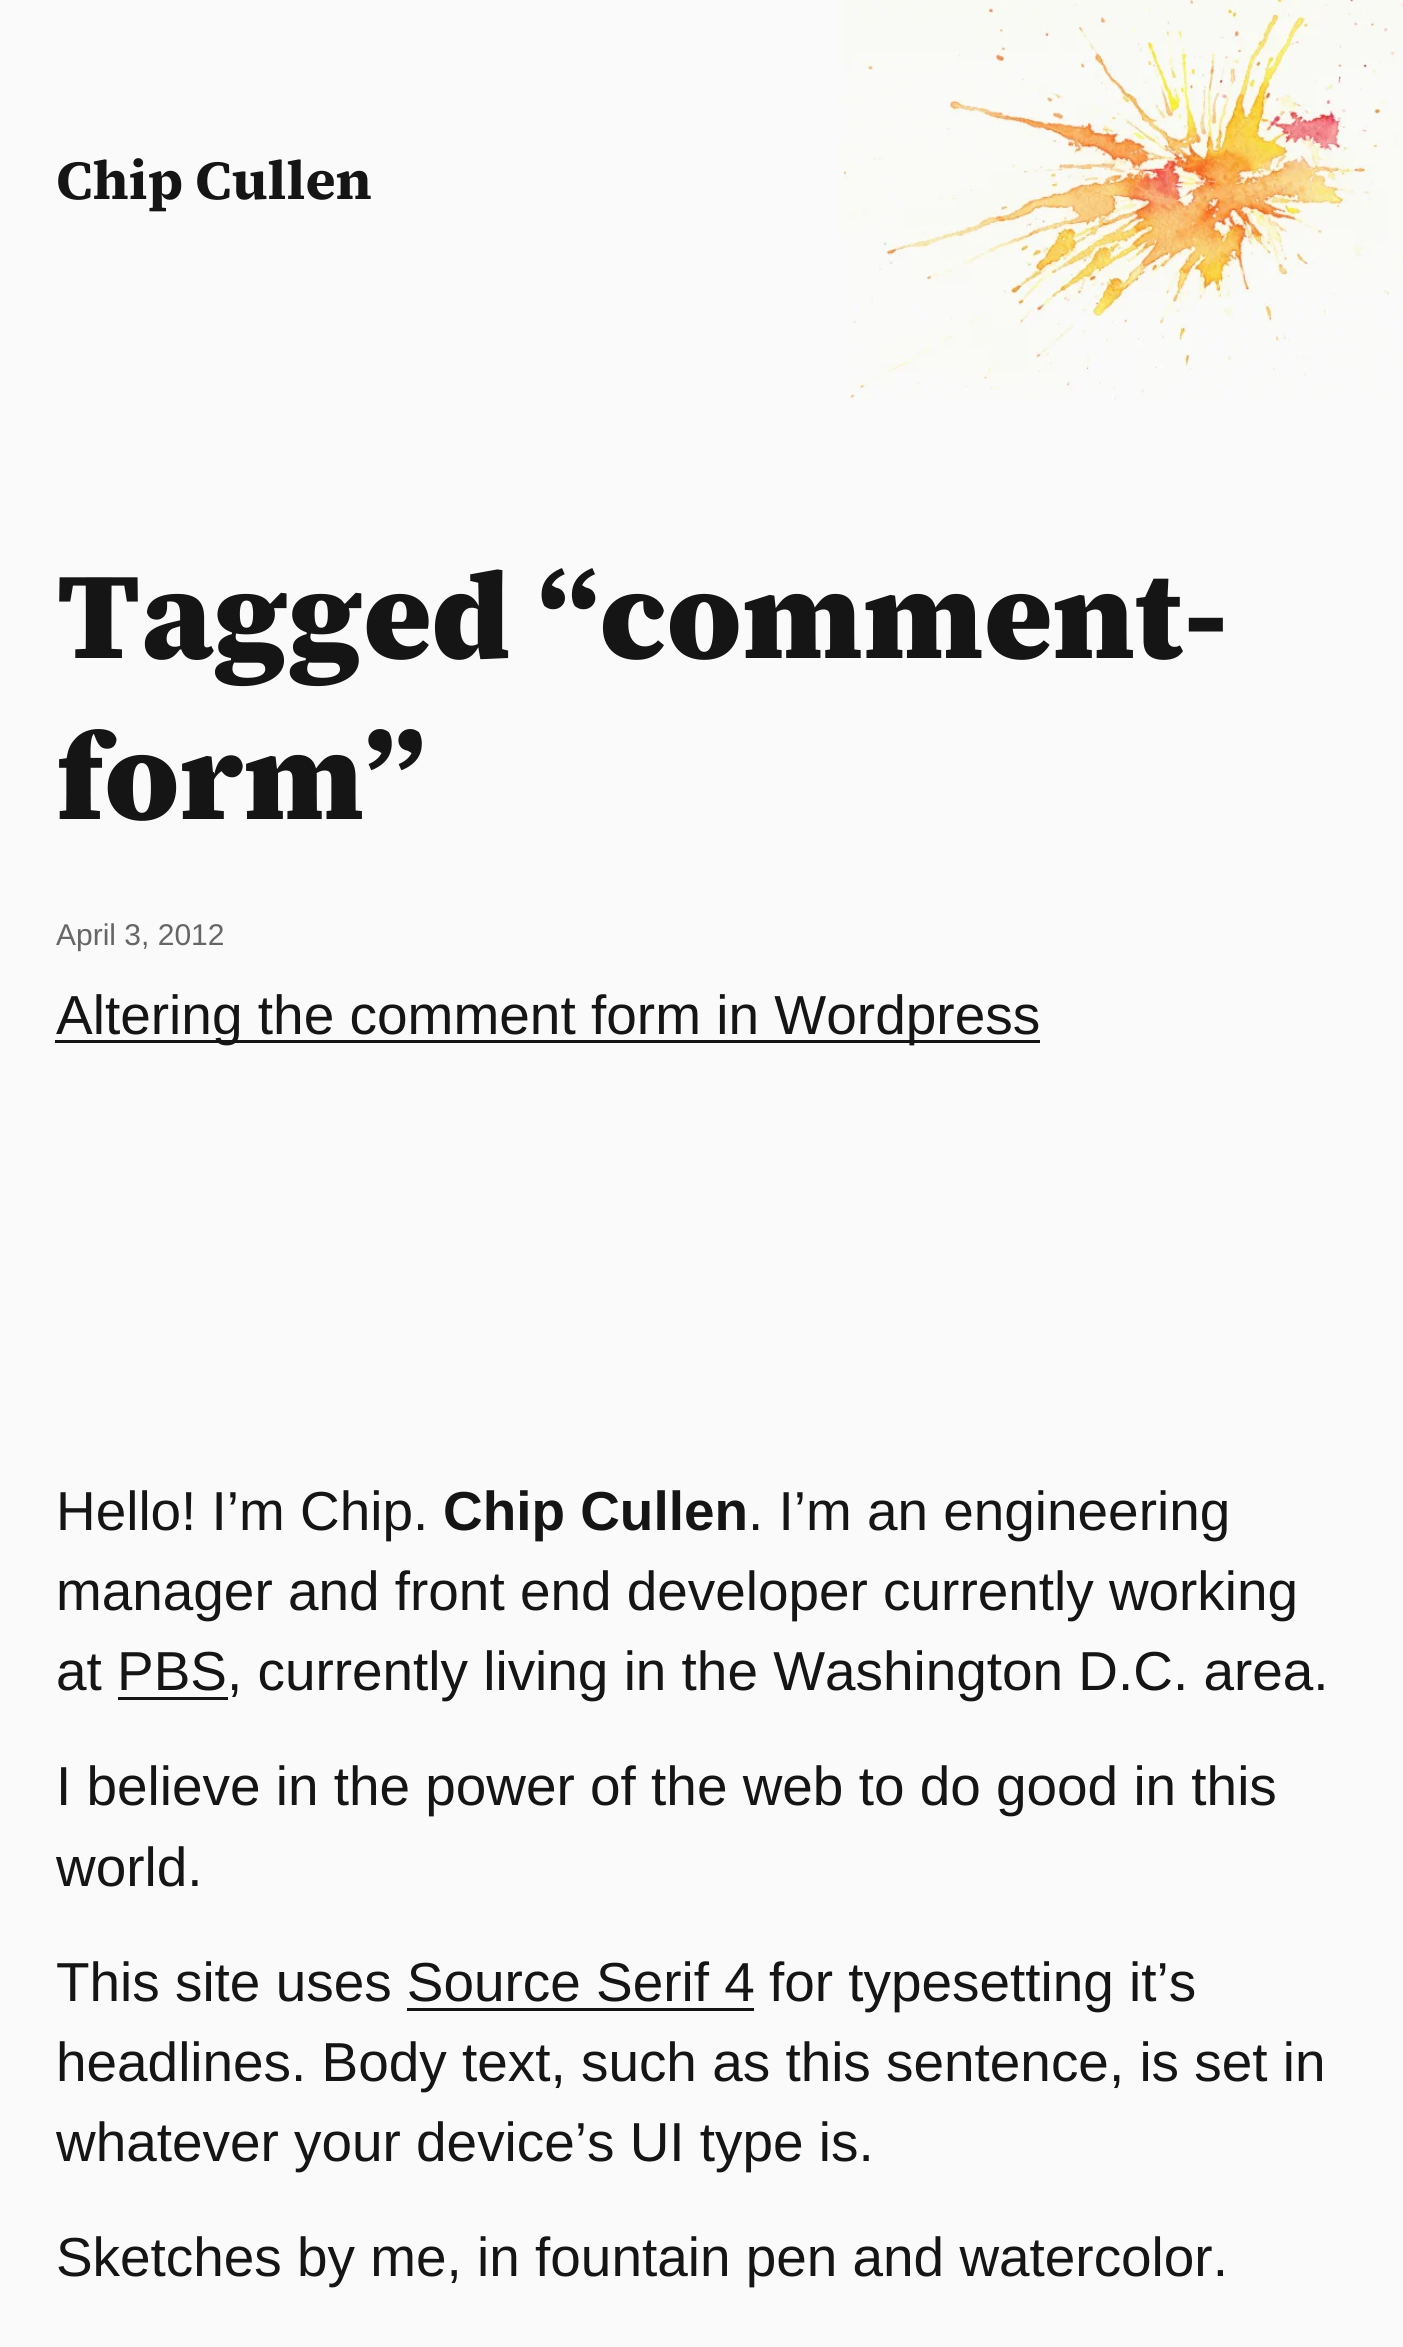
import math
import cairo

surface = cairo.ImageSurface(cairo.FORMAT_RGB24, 1403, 2347)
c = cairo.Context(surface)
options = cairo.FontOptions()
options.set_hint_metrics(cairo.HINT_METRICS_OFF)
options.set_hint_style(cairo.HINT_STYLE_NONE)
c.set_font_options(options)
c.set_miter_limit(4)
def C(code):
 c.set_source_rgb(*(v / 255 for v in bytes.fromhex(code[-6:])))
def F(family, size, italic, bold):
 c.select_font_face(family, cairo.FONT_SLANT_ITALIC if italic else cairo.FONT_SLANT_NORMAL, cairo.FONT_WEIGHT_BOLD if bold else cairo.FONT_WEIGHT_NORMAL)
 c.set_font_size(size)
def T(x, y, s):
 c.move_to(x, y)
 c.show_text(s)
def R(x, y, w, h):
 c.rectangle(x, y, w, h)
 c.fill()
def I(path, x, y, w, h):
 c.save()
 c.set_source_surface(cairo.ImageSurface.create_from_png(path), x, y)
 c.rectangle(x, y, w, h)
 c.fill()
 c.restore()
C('fafafa')
c.paint()
F('Source Serif 4',54.9,0,1)
C('151515')
T(56,199,'Chip Cullen')
F('Source Serif 4 Black',123.75,0,0)
T(56,658,'Tagged “comment-')
T(56,819,'form”')
I('1.png',844,0,559,400)
F('Liberation Sans',30,0,0)
C('666666')
T(56,945,'April 3, 2012')
C('151515')
R(55,1040,985,3)
F('Liberation Sans',55,0,0)
T(56,1034,'Altering the comment form in Wordpress')
F('Liberation Sans',54.9,0,0)
T(56,1530,'Hello! I’m Chip.')
F('Liberation Sans',54.9,0,1)
T(443,1530,'Chip Cullen')
F('Liberation Sans',54.9,0,0)
T(748,1530,'. I’m an engineering')
T(56,1610,'manager and front end developer currently working')
T(56,1690,'at PBS')
T(227,1690,', currently living in the Washington D.C. area.')
R(118,1697,110,3)
T(56,1805,'I believe in the power of the web to do good in this')
T(56,1886,'world.')
T(56,2001,'This site uses Source Serif 4')
T(769,2001,'for typesetting it’s')
R(407,2008,347,3)
T(56,2081,'headlines. Body text, such as this sentence, is set in')
T(56,2161,'whatever your device’s UI type is.')
T(56,2276,'Sketches by me, in fountain pen and watercolor.')
surface.write_to_png('o.png')
